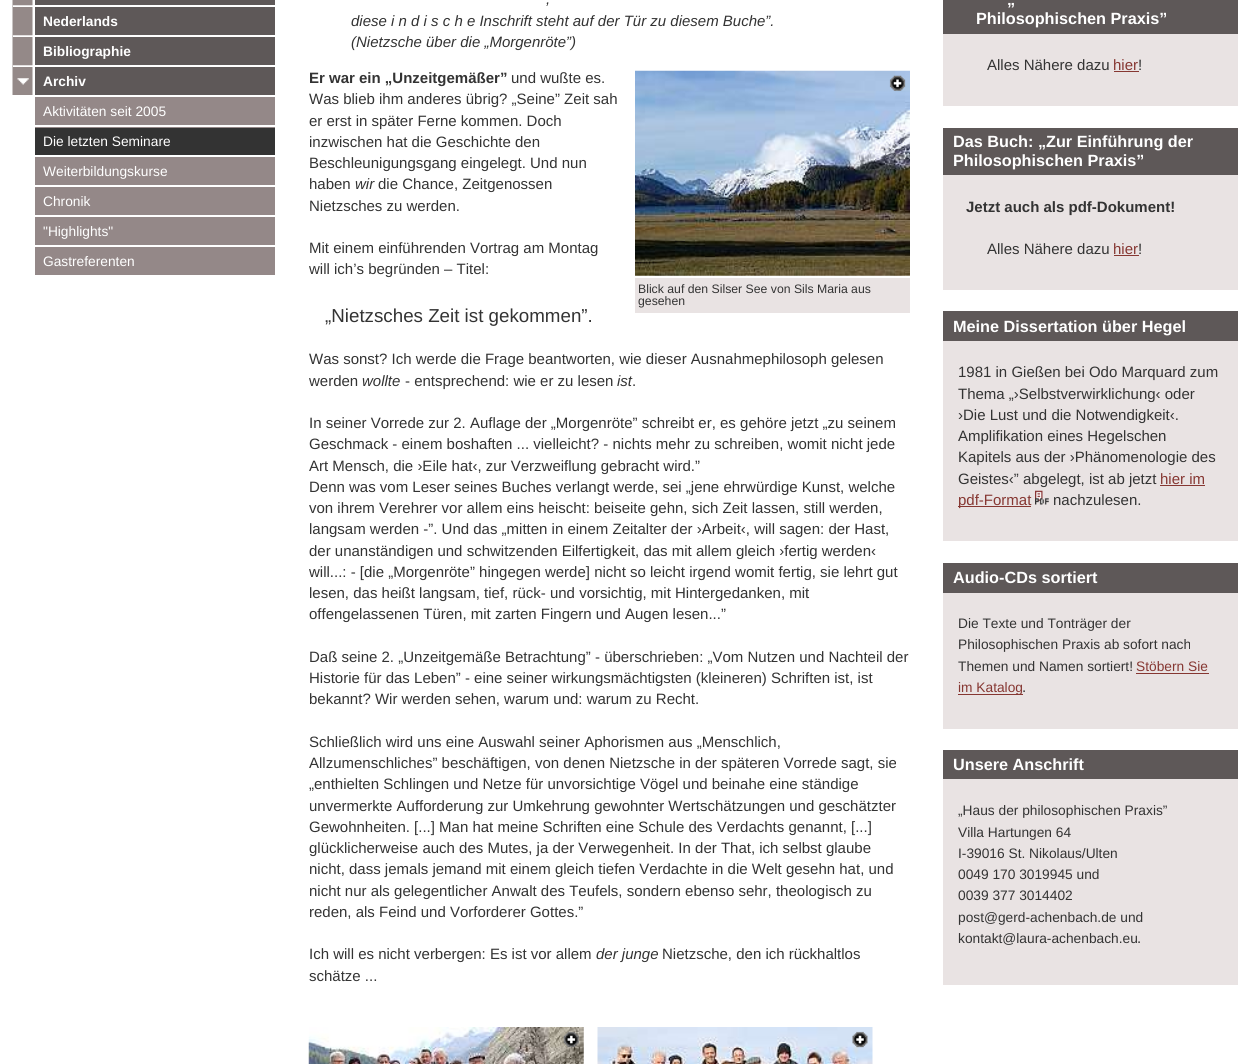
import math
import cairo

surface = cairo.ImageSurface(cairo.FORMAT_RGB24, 1249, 1064)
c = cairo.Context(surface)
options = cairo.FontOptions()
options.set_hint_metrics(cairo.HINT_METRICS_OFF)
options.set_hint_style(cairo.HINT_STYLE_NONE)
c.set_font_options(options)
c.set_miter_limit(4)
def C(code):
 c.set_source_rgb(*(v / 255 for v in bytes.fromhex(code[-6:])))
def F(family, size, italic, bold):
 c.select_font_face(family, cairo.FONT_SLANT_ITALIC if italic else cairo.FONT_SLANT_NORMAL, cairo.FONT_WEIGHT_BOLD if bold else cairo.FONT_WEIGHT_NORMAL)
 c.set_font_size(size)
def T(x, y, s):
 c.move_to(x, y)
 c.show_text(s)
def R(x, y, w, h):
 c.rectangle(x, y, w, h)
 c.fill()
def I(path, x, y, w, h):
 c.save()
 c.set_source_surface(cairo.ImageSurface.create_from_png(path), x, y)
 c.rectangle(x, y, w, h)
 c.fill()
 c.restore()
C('ffffff')
c.paint()
C('5e5858')
R(35,0,240,5)
I('1.png',12,0,23,6)
C('ffffff')
R(13,5,20,1)
C('5e5858')
R(35,7,240,28)
I('2.png',12,5,23,31)
C('ffffff')
R(13,6,20,1)
R(13,35,20,1)
F('Liberation Sans',13.75,0,1)
T(43,26,'Nederlands')
C('5e5858')
R(35,37,240,28)
I('2.png',12,35,23,31)
C('ffffff')
R(13,36,20,1)
R(13,65,20,1)
T(43,56,'Bibliographie')
C('5e5858')
R(35,67,240,28)
I('3.png',12,65,23,30)
C('ffffff')
R(13,66,20,1)
I('4.png',17,78,12,7)
T(43,86,'Archiv')
C('948888')
R(35,97,240,28)
F('Liberation Sans',13.75,0,0)
C('ffffff')
T(43,116,'Aktivitäten seit 2005')
C('948888')
R(35,127,240,1)
C('333333')
R(35,128,240,27)
C('ffffff')
T(43,146,'Die letzten Seminare')
C('948888')
R(35,157,240,28)
C('ffffff')
T(43,176,'Weiterbildungskurse')
C('948888')
R(35,187,240,28)
C('ffffff')
T(43,206,'Chronik')
C('948888')
R(35,217,240,28)
C('ffffff')
T(43,236,'"Highlights"')
C('948888')
R(35,247,240,28)
C('ffffff')
T(43,266,'Gastreferenten')
F('Liberation Sans',15,1,0)
C('333333')
T(546,4,',')
T(351,26,'diese i n d i s c h e Inschrift steht auf der Tür zu diesem Buche”.')
T(351,47,'(Nietzsche über die „Morgenröte”)')
F('Liberation Sans',15,0,1)
T(309,83,'Er war ein „Unzeitgemäßer”')
F('Liberation Sans',15,0,0)
T(511,83,'und wußte es.')
T(309,104,'Was blieb ihm anderes übrig? „Seine” Zeit sah')
T(309,126,'er erst in später Ferne kommen. Doch')
T(309,147,'inzwischen hat die Geschichte den')
T(309,168,'Beschleunigungsgang eingelegt. Und nun')
T(309,189,'haben')
F('Liberation Sans',15,1,0)
T(355,189,'wir')
F('Liberation Sans',15,0,0)
T(378,189,'die Chance, Zeitgenossen')
T(309,211,'Nietzsches zu werden.')
T(309,253,'Mit einem einführenden Vortrag am Montag')
T(309,274,'will ich’s begründen ‒ Titel:')
F('Liberation Sans',18.75,0,0)
T(325,322,'„Nietzsches Zeit ist gekommen”.')
F('Liberation Sans',15,0,0)
T(309,364,'Was sonst? Ich werde die Frage beantworten, wie dieser Ausnahmephilosoph gelesen')
T(309,386,'werden')
F('Liberation Sans',15,1,0)
T(362,386,'wollte')
F('Liberation Sans',15,0,0)
T(405,386,'- entsprechend: wie er zu lesen')
F('Liberation Sans',15,1,0)
T(617,386,'ist')
F('Liberation Sans',15,0,0)
T(632,386,'.')
T(309,428,'In seiner Vorrede zur 2. Auflage der „Morgenröte” schreibt er, es gehöre jetzt „zu seinem')
T(309,449,'Geschmack - einem boshaften ... vielleicht? - nichts mehr zu schreiben, womit nicht jede')
T(309,471,'Art Mensch, die ›Eile hat‹, zur Verzweiflung gebracht wird.”')
T(309,492,'Denn was vom Leser seines Buches verlangt werde, sei „jene ehrwürdige Kunst, welche')
T(309,513,'von ihrem Verehrer vor allem eins heischt: beiseite gehn, sich Zeit lassen, still werden,')
T(309,534,'langsam werden -”. Und das „mitten in einem Zeitalter der ›Arbeit‹, will sagen: der Hast,')
T(309,556,'der unanständigen und schwitzenden Eilfertigkeit, das mit allem gleich ›fertig werden‹')
T(309,577,'will...: - [die „Morgenröte” hingegen werde] nicht so leicht irgend womit fertig, sie lehrt gut')
T(309,598,'lesen, das heißt langsam, tief, rück- und vorsichtig, mit Hintergedanken, mit')
T(309,619,'offengelassenen Türen, mit zarten Fingern und Augen lesen...”')
T(309,662,'Daß seine 2. „Unzeitgemäße Betrachtung” - überschrieben: „Vom Nutzen und Nachteil der')
T(309,683,'Historie für das Leben” - eine seiner wirkungsmächtigsten (kleineren) Schriften ist, ist')
T(309,704,'bekannt? Wir werden sehen, warum und: warum zu Recht.')
T(309,747,'Schließlich wird uns eine Auswahl seiner Aphorismen aus „Menschlich,')
T(309,768,'Allzumenschliches” beschäftigen, von denen Nietzsche in der späteren Vorrede sagt, sie')
T(309,789,'„enthielten Schlingen und Netze für unvorsichtige Vögel und beinahe eine ständige')
T(309,811,'unvermerkte Aufforderung zur Umkehrung gewohnter Wertschätzungen und geschätzter')
T(309,832,'Gewohnheiten. [...] Man hat meine Schriften eine Schule des Verdachts genannt, [...]')
T(309,853,'glücklicherweise auch des Mutes, ja der Verwegenheit. In der That, ich selbst glaube')
T(309,874,'nicht, dass jemals jemand mit einem gleich tiefen Verdachte in die Welt gesehn hat, und')
T(309,896,'nicht nur als gelegentlicher Anwalt des Teufels, sondern ebenso sehr, theologisch zu')
T(309,917,'reden, als Feind und Vorforderer Gottes.”')
T(309,959,'Ich will es nicht verbergen: Es ist vor allem')
F('Liberation Sans',15,1,0)
T(596,959,'der junge')
F('Liberation Sans',15,0,0)
T(662,959,'Nietzsche, den ich rückhaltlos')
T(309,981,'schätze ...')
I('5.png',635,70,275,206)
I('6.png',889,75,17,16)
C('e9e3e3')
R(635,278,275,35)
F('Liberation Sans',12.25,0,0)
C('333333')
T(638,293,'Blick auf den Silser See von Sils Maria aus')
T(638,305,'gesehen')
I('7.png',308,1027,276,37)
I('8.png',563,1031,16,17)
I('9.png',597,1027,276,37)
I('10.png',852,1031,16,17)
C('e9e3e3')
R(943,34,295,951)
C('5e5858')
R(943,0,295,34)
F('Liberation Sans',16.25,0,1)
C('ffffff')
T(1007,5,'„')
T(976,24,'Philosophischen Praxis”')
R(943,106,295,22)
F('Liberation Sans',15,0,0)
C('333333')
T(987,70,'Alles Nähere dazu')
C('863732')
T(1113,70,'hier')
R(1114,71,25,1)
C('333333')
T(1138,70,'!')
C('5e5858')
R(943,128,295,47)
F('Liberation Sans',16.25,0,1)
C('ffffff')
T(953,147,'Das Buch: „Zur Einführung der')
T(953,166,'Philosophischen Praxis”')
R(943,290,295,21)
F('Liberation Sans',15,0,1)
C('333333')
T(966,212,'Jetzt auch als pdf-Dokument!')
F('Liberation Sans',15,0,0)
T(987,254,'Alles Nähere dazu')
C('863732')
T(1113,254,'hier')
R(1114,255,25,1)
C('333333')
T(1138,254,'!')
C('5e5858')
R(943,311,295,30)
F('Liberation Sans',16.25,0,1)
C('ffffff')
T(953,332,'Meine Dissertation über Hegel')
R(943,541,295,22)
F('Liberation Sans',15,0,0)
C('333333')
T(958,377,'1981 in Gießen bei Odo Marquard zum')
T(958,399,'Thema „›Selbstverwirklichung‹ oder')
T(958,420,'›Die Lust und die Notwendigkeit‹.')
T(958,441,'Amplifikation eines Hegelschen')
T(958,462,'Kapitels aus der ›Phänomenologie des')
T(958,484,'Geistes‹” abgelegt, ist ab jetzt')
C('863732')
T(1160,484,'hier im')
R(1160,485,45,1)
R(958,506,73,1)
T(958,505,'pdf-Format')
I('11.png',1035,490,14,15)
C('333333')
T(1053,505,'nachzulesen.')
C('5e5858')
R(943,563,295,30)
F('Liberation Sans',16.25,0,1)
C('ffffff')
T(953,583,'Audio-CDs sortiert')
R(943,729,295,21)
F('Liberation Sans',13.75,0,0)
C('333333')
T(958,628,'Die Texte und Tonträger der')
T(958,649,'Philosophischen Praxis ab sofort nach')
T(958,671,'Themen und Namen sortiert!')
C('863732')
T(1136,671,'Stöbern Sie')
R(1136,673,73,1)
R(958,694,65,1)
T(958,692,'im Katalog')
F('Liberation Sans',15,0,0)
C('333333')
T(1022,692,'.')
C('5e5858')
R(943,750,295,29)
F('Liberation Sans',16.25,0,1)
C('ffffff')
T(953,770,'Unsere Anschrift')
F('Liberation Sans',13.75,0,0)
C('333333')
T(958,815,'„Haus der philosophischen Praxis”')
T(958,837,'Villa Hartungen 64')
T(958,858,'I-39016 St. Nikolaus/Ulten')
T(958,879,'0049 170 3019945 und')
T(958,900,'0039 377 3014402')
T(958,922,'post@gerd-achenbach.de und')
T(958,943,'kontakt@laura-achenbach.eu')
F('Liberation Sans',15,0,0)
T(1137,943,'.')
surface.write_to_png('o.png')
